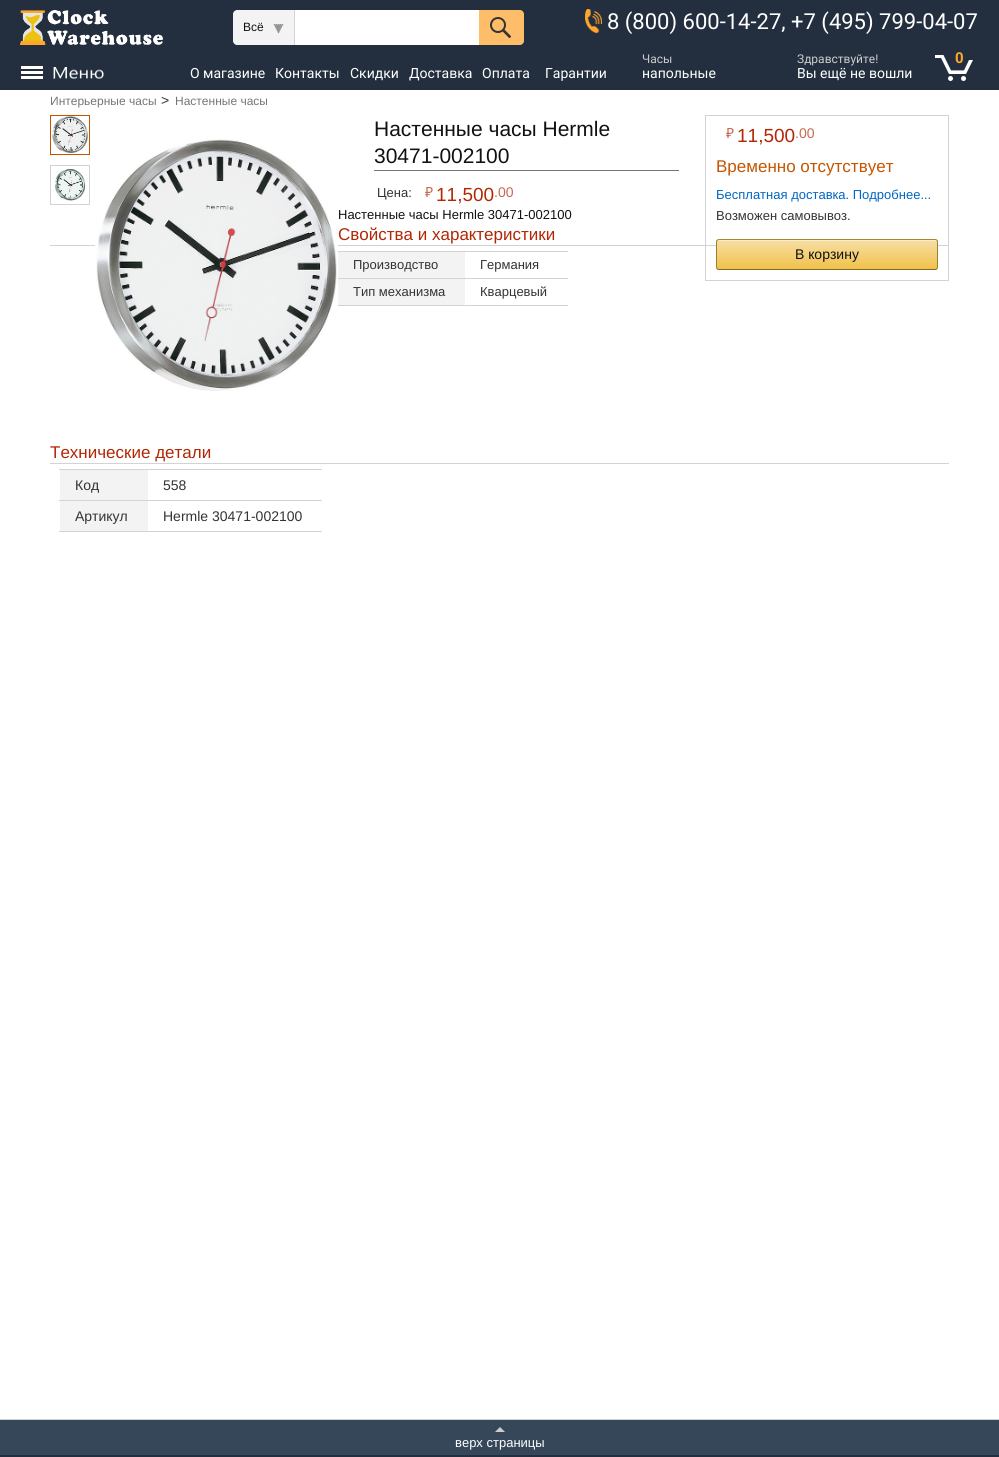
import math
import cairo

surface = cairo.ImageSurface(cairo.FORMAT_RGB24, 999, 1457)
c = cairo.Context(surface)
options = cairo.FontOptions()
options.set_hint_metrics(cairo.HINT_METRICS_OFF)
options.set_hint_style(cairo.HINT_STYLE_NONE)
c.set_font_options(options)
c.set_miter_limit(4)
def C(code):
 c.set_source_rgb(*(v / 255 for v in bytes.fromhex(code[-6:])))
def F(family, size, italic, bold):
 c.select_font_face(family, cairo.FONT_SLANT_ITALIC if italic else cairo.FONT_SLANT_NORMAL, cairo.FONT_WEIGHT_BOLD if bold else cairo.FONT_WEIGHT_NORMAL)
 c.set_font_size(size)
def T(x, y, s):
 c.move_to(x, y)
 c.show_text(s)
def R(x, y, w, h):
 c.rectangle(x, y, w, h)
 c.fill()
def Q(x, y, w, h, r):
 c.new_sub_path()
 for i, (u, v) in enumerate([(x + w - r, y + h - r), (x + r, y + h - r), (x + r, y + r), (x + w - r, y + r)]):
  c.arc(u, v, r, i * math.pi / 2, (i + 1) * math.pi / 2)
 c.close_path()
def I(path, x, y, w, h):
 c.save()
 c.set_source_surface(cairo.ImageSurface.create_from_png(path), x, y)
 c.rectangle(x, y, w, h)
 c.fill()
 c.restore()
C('ffffff')
c.paint()
C('232f3e')
R(0,0,999,90)
I('1.png',20,10,143,35)
C('f3f3f3')
c.new_path()
c.move_to(237,10)
c.line_to(295,10)
c.line_to(295,45)
c.line_to(237,45)
c.curve_to(235,45,233,43,233,41)
c.line_to(233,14)
c.curve_to(233,12,235,10,237,10)
c.close_path()
c.fill()
C('d3d3d3')
R(294,10,1,35)
F('Liberation Sans',12,0,0)
C('111111')
T(243,31,'Всё')
I('2.png',273,24,11,10)
C('ffffff')
R(295,10,184,35)
C('febd69')
c.new_path()
c.move_to(479,10)
c.line_to(520,10)
c.curve_to(522,10,524,12,524,14)
c.line_to(524,41)
c.curve_to(524,43,522,45,520,45)
c.line_to(479,45)
c.close_path()
c.fill()
I('3.png',490,17,21,21)
I('4.png',585,9,17,24)
F('Roboto',22,0,0)
C('ffffff')
T(607,29,'8 (800) 600-14-27, +7 (495) 799-04-07')
I('5.png',21,66,83,13)
F('Roboto',14,0,0)
T(190,78,'О магазине')
T(275,78,'Контакты')
T(350,78,'Скидки')
T(409,78,'Доставка')
T(482,78,'Оплата')
T(545,78,'Гарантии')
F('Roboto',12,0,0)
C('cccccc')
T(642,63,'Часы')
F('Roboto',14,0,0)
C('ffffff')
T(642,78,'напольные')
F('Roboto',12,0,0)
C('cccccc')
T(797,63,'Здравствуйте!')
F('Roboto',14,0,0)
C('ffffff')
T(797,78,'Вы ещё не вошли')
I('6.png',935,55,38,26)
F('Roboto',15,0,1)
C('ffa72b')
T(955,63,'0')
F('Liberation Sans',12,0,0)
C('767676')
T(50,105,'Интерьерные часы')
F('Liberation Sans',14,0,0)
C('333333')
T(161,105,'>')
F('Liberation Sans',12,0,0)
C('767676')
T(175,105,'Настенные часы')
c.rectangle(50.5,115.5,39,39)
C('c45500')
c.set_line_width(1)
c.stroke()
I('7.png',52,116,36,38)
c.rectangle(50.5,165.5,39,39)
C('d3d3d3')
c.stroke()
I('8.png',54,169,32,32)
R(50,245,899,1)
R(337,251,231,1)
R(337,278,231,1)
R(337,305,231,1)
I('9.png',95,139,243,252)
F('Liberation Sans',21,0,0)
C('111111')
T(374,136,'Настенные часы Hermle')
T(374,163,'30471-002100')
C('767676')
R(374,170,305,1)
F('Liberation Sans',13,0,0)
C('333333')
T(377,197,'Цена:')
F('Noto Sans',14,0,0)
C('c8684f')
T(425,197,'₽')
F('Liberation Sans',19,0,0)
C('b12704')
T(436,201,'11,500')
F('Liberation Sans',14,0,0)
C('c8684f')
T(494,197,'.00')
c.rectangle(705.5,115.5,243,165)
C('d3d3d3')
c.stroke()
F('Noto Sans',14,0,0)
C('c8684f')
T(726,138,'₽')
F('Liberation Sans',19,0,0)
C('b12704')
T(737,142,'11,500')
F('Liberation Sans',14,0,0)
C('c8684f')
T(795,138,'.00')
F('Liberation Sans',17,0,0)
C('c45500')
T(716,172,'Временно отсутствует')
F('Liberation Sans',13,0,0)
C('0066c0')
T(716,199,'Бесплатная доставка. Подробнее...')
C('333333')
T(716,220,'Возможен самовывоз.')
c.save()
Q(716,239,222,31,3)
c.clip()
gradient = cairo.LinearGradient(827,240,827,269)
gradient.add_color_stop_rgba(0,0.969,0.875,0.647,1)
gradient.add_color_stop_rgba(1,0.941,0.757,0.294,1)
c.set_source(gradient)
R(716,240,222,29)
c.restore()
c.set_source_rgba(1,1,1,0.4)
c.new_path()
c.move_to(719,241)
c.line_to(935,241)
c.curve_to(936,241,937,242,937,243)
c.curve_to(937,242,937,240,935,240)
c.line_to(719,240)
c.line_to(718,241)
c.line_to(717,243)
c.curve_to(717,242,718,241,719,241)
c.close_path()
c.fill()
c.new_path()
c.move_to(717,240)
c.line_to(719,239.5)
c.line_to(935.5,239.5)
c.line_to(937,240)
C('a88734')
c.stroke()
c.new_path()
c.move_to(937,240)
c.curve_to(937,240.5,937.5,241.5,937.5,242)
c.line_to(937.5,267)
c.curve_to(937.5,267.5,937,268.5,937,269)
C('9c7e31')
c.stroke()
c.new_path()
c.move_to(937,269)
c.line_to(935.5,269.5)
c.line_to(755,269.5)
c.line_to(719,269.5)
c.line_to(717,269)
C('846a29')
c.stroke()
c.new_path()
c.move_to(717,269)
c.curve_to(717,268.5,716.5,267.5,716.5,267)
c.line_to(716.5,242)
c.curve_to(716.5,241.5,717,240.5,717,240)
C('9c7e31')
c.stroke()
F('Liberation Sans',14,0,0)
C('111111')
T(795,259,'В корзину')
F('Liberation Sans',13,0,0)
T(338,219,'Настенные часы Hermle 30471-002100')
F('Liberation Sans',17,0,0)
C('b12704')
T(338,240,'Свойства и характеристики')
C('f3f3f3')
R(338,252,127,26)
F('Liberation Sans',13,0,0)
C('333333')
T(353,269,'Производство')
T(480,269,'Германия')
C('f3f3f3')
R(338,279,127,26)
C('333333')
T(353,296,'Тип механизма')
T(480,296,'Кварцевый')
F('Liberation Sans',17,0,0)
C('b12704')
T(50,458,'Технические детали')
C('d3d3d3')
R(50,463,899,1)
R(59,469,263,1)
R(59,500,263,1)
C('f3f3f3')
R(60,470,88,30)
F('Liberation Sans',14,0,0)
C('333333')
T(75,490,'Код')
T(163,490,'558')
C('d3d3d3')
R(59,531,263,1)
C('f3f3f3')
R(60,501,88,30)
C('333333')
T(75,521,'Артикул')
T(163,521,'Hermle 30471-002100')
C('d0d0d0')
R(0,1419,999,1)
C('37475a')
R(0,1420,999,35)
C('cccccc')
c.new_path()
c.move_to(505,1432)
c.line_to(495,1432)
c.line_to(500,1427)
c.close_path()
c.fill()
F('Liberation Sans',13,0,0)
C('ffffff')
T(455,1447,'верх страницы')
C('232f3e')
R(0,1455,999,2)
surface.write_to_png('o.png')
